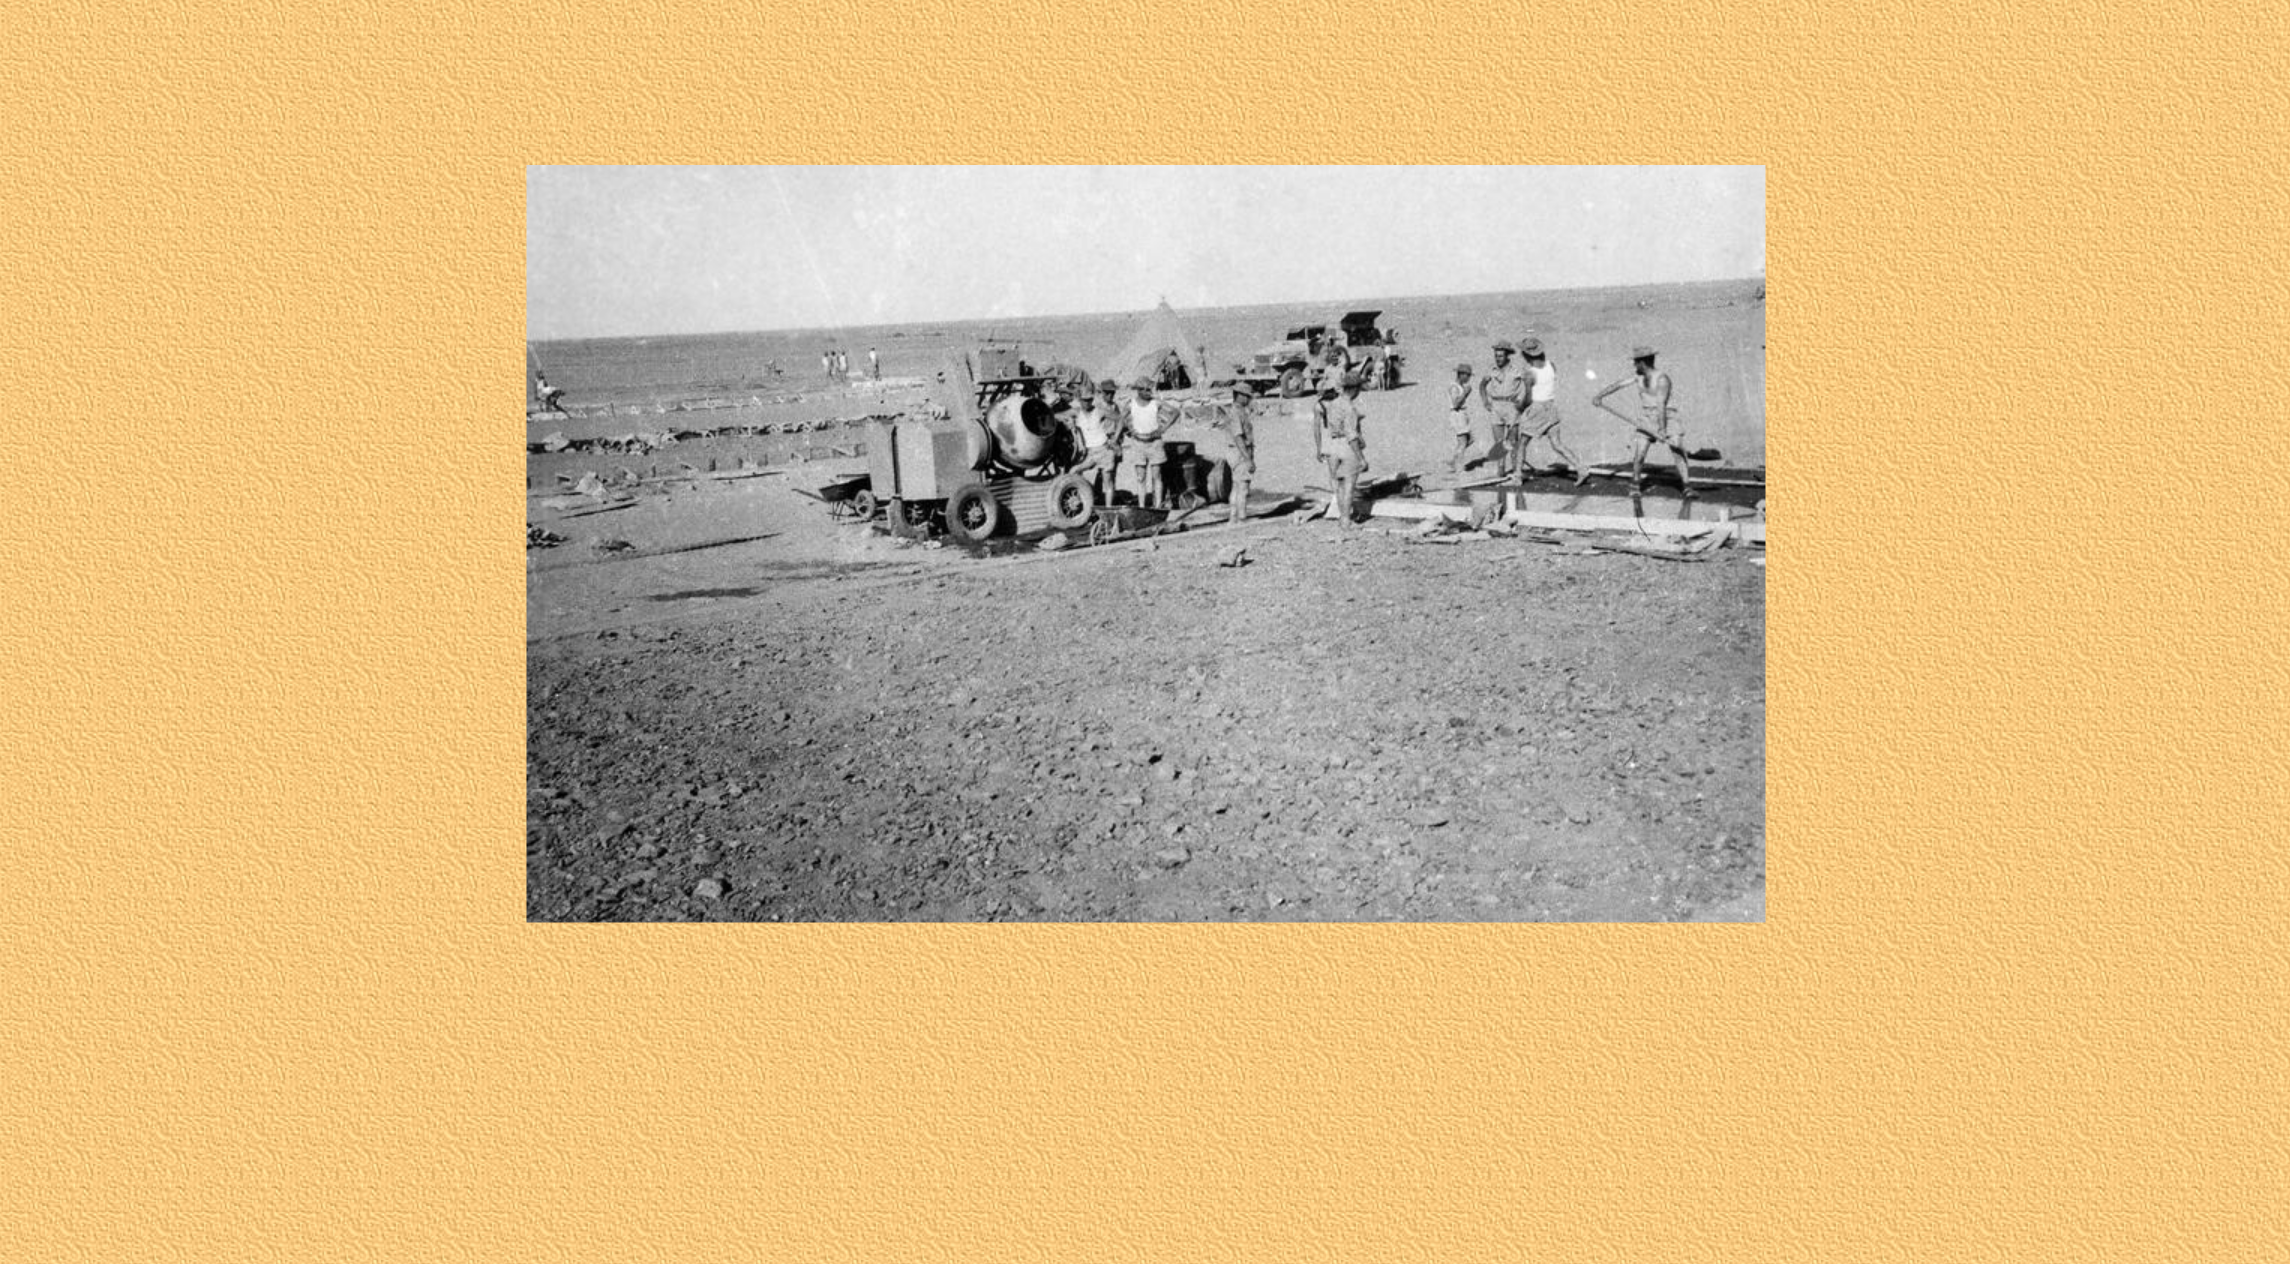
import math
import cairo

surface = cairo.ImageSurface(cairo.FORMAT_RGB24, 2290, 1264)
c = cairo.Context(surface)
options = cairo.FontOptions()
options.set_hint_metrics(cairo.HINT_METRICS_OFF)
options.set_hint_style(cairo.HINT_STYLE_NONE)
c.set_font_options(options)
c.set_miter_limit(4)
def C(code):
 c.set_source_rgb(*(v / 255 for v in bytes.fromhex(code[-6:])))
def I(path, x, y, w, h):
 c.save()
 c.set_source_surface(cairo.ImageSurface.create_from_png(path), x, y)
 c.rectangle(x, y, w, h)
 c.fill()
 c.restore()
C('ffffff')
c.paint()
I('1.png',0,0,2290,1264)
I('2.png',526,165,1240,758)
surface.write_to_png('o.png')
